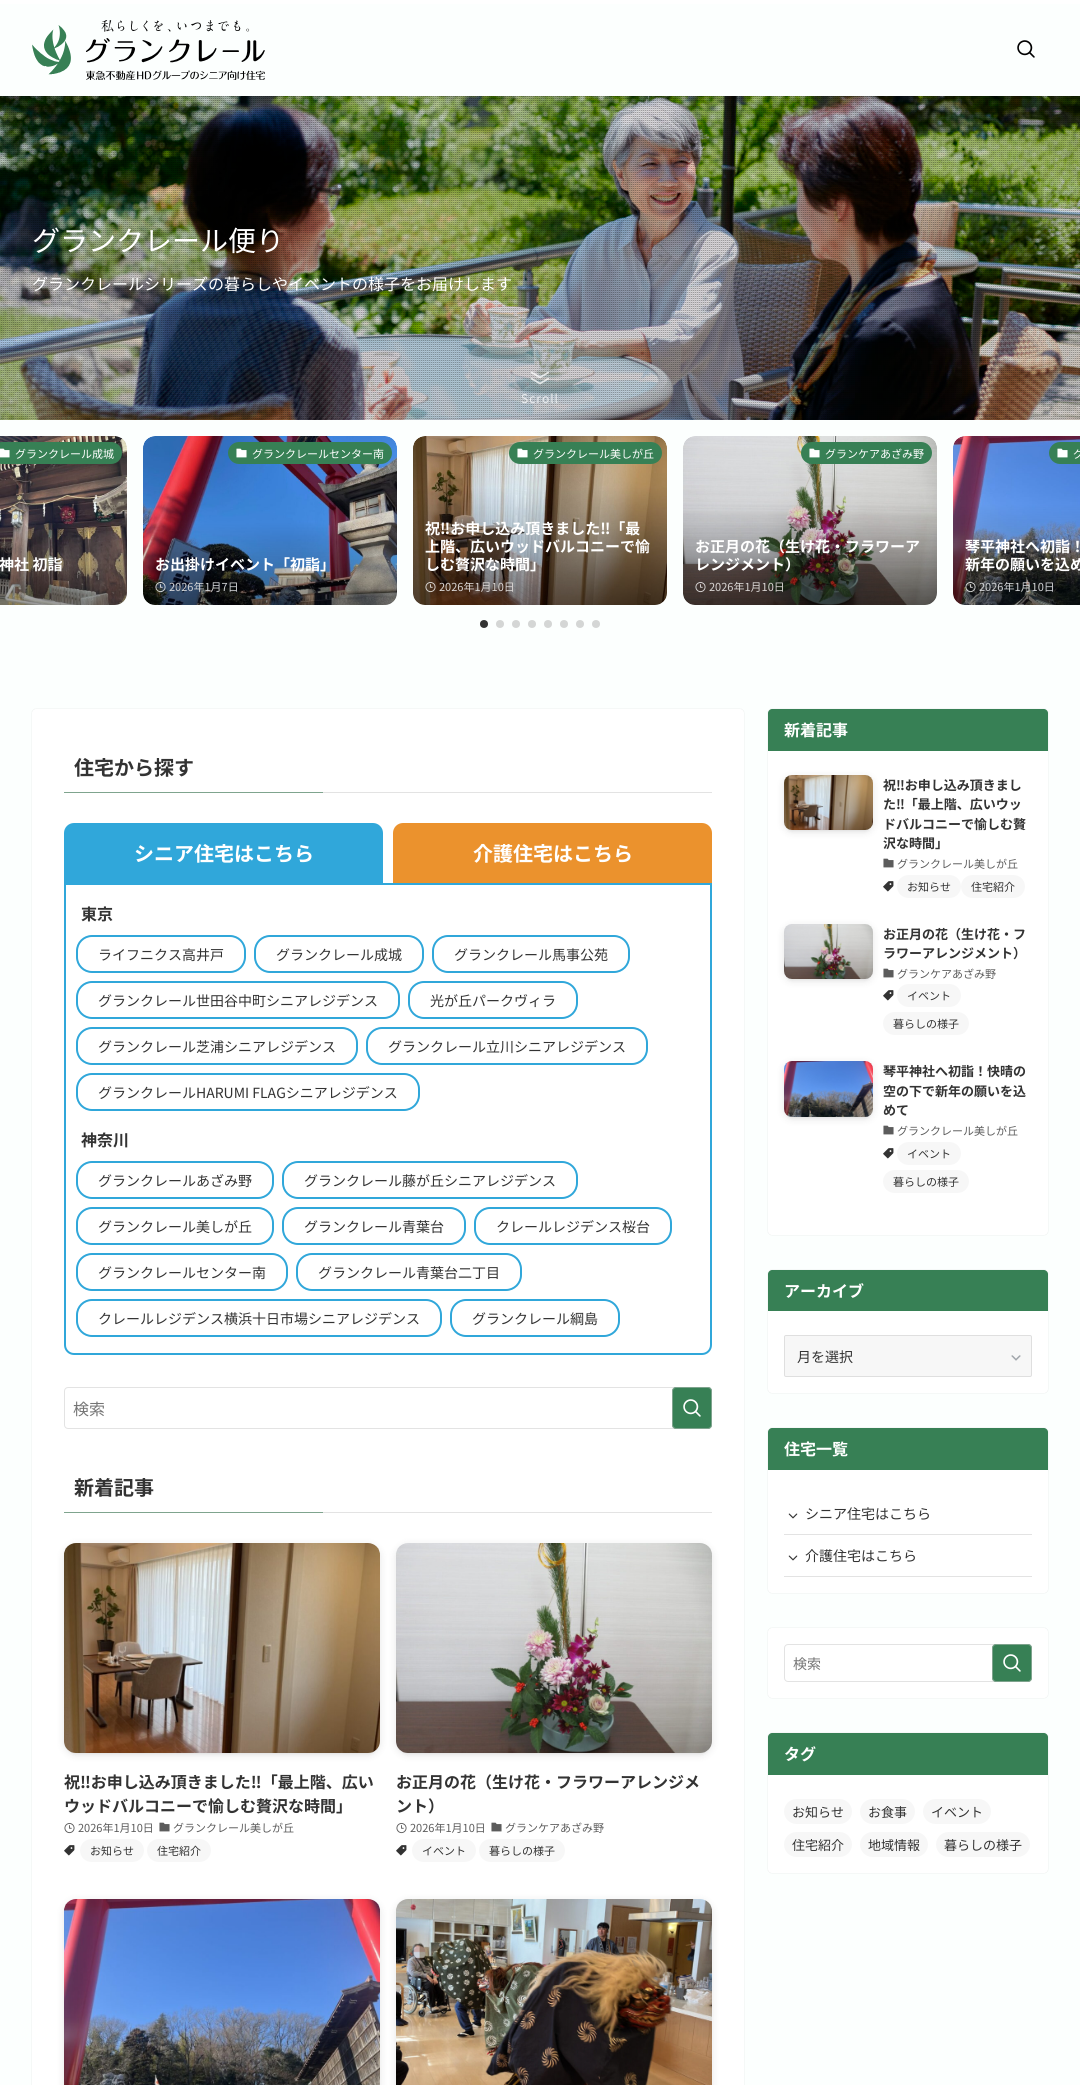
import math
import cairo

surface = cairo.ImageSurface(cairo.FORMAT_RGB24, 1080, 2085)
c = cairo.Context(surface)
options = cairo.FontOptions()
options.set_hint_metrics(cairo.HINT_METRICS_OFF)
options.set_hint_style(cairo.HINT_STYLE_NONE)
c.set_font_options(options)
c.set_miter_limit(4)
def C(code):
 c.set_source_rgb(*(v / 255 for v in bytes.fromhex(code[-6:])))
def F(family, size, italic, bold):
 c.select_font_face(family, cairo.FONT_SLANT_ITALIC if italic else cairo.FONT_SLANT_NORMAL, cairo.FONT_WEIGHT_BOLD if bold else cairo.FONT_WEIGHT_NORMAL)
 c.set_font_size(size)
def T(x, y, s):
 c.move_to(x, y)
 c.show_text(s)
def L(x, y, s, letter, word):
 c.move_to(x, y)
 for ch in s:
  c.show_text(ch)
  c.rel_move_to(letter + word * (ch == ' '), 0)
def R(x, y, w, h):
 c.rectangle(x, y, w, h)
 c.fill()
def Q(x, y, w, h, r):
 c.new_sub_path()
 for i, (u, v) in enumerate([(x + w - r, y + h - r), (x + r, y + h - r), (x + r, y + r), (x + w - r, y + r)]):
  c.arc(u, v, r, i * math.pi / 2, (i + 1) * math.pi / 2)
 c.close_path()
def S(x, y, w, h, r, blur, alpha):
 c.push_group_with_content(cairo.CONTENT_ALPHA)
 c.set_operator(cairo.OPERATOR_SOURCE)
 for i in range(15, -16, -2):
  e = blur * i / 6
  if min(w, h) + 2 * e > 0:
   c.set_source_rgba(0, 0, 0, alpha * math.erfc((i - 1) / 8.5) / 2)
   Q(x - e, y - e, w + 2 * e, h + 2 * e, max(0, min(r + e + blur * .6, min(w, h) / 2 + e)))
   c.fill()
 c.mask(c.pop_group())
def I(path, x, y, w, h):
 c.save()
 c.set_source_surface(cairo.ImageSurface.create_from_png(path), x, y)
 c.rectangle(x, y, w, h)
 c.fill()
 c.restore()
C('fcfffe')
c.paint()
I('3.png',0,96,1080,324)
I('4.png',0,96,1080,324)
c.save()
c.rectangle(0,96,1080,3)
c.clip()
C('000000')
S(0,1,1080,96,0,2,.12)
c.restore()
C('ffffff')
R(0,0,1080,4)
I('1.png',32,20,233,60)
I('2.png',1017,40,18,18)
F('Noto Sans JP',28,0,0)
T(32,251,'グランクレール便り')
F('Noto Sans JP',16,0,0)
T(32,290,'グランクレールシリーズの暮らしやイベントの様子をお届けします')
I('5.png',530,371,20,14)
F('Noto Sans JP',12,0,0)
C('ebedef')
L(521,403,'Scroll',1,0)
I('6.png',0,436,127,169)
C('378055')
Q(-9,442,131,22,11)
c.fill()
I('7.png',0,448,10,10)
F('Noto Sans JP',11,0,0)
C('ffffff')
T(15,458,'グランクレール成城')
gradient = cairo.LinearGradient(0,523,0,605)
gradient.add_color_stop_rgba(0,0,0,0,0)
gradient.add_color_stop_rgba(1,0,0,0,.4)
c.set_source(gradient)
c.new_path()
c.move_to(0,523)
c.line_to(127,523)
c.line_to(127,593)
c.curve_to(127,599.5,121.5,605,115,605)
c.line_to(0,605)
c.close_path()
c.fill()
F('Noto Sans JP',15,0,1)
C('ffffff')
T(-1,570,'神社 初詣')
I('8.png',143,436,254,169)
C('378055')
Q(228,442,164,22,11)
c.fill()
I('9.png',236,448,11,10)
F('Noto Sans JP',11,0,0)
C('ffffff')
T(252,458,'グランクレールセンター南')
gradient = cairo.LinearGradient(270,523,270,605)
gradient.add_color_stop_rgba(0,0,0,0,0)
gradient.add_color_stop_rgba(1,0,0,0,.4)
c.set_source(gradient)
c.new_path()
c.move_to(143,523)
c.line_to(397,523)
c.line_to(397,593)
c.curve_to(397,599.5,391.5,605,385,605)
c.line_to(155,605)
c.curve_to(148.5,605,143,599.5,143,593)
c.close_path()
c.fill()
F('Noto Sans JP',15,0,1)
C('ffffff')
T(155,570,'お出掛けイベント「初詣」')
I('10.png',155,582,11,11)
F('Noto Sans JP',11,0,0)
C('d1d3d6')
T(169,591,'2026年1月7日')
I('11.png',413,436,254,169)
C('378055')
Q(509,442,153,22,11)
c.fill()
I('9.png',517,448,11,10)
C('ffffff')
T(533,458,'グランクレール美しが丘')
gradient = cairo.LinearGradient(540,487,540,605)
gradient.add_color_stop_rgba(0,0,0,0,0)
gradient.add_color_stop_rgba(1,0,0,0,.4)
c.set_source(gradient)
c.new_path()
c.move_to(413,487)
c.line_to(667,487)
c.line_to(667,593)
c.curve_to(667,599.5,661.5,605,655,605)
c.line_to(425,605)
c.curve_to(418.5,605,413,599.5,413,593)
c.close_path()
c.fill()
F('Noto Sans JP',15,0,1)
C('ffffff')
T(425,534,'祝‼お申し込み頂きました‼「最')
T(425,552,'上階、広いウッドバルコニーで愉')
T(425,570,'しむ贅沢な時間」')
I('12.png',425,582,11,11)
F('Noto Sans JP',11,0,0)
C('dbd7d5')
T(439,591,'2026年1月10日')
I('13.png',683,436,254,169)
C('378055')
Q(801,442,131,22,11)
c.fill()
I('9.png',809,448,11,10)
C('ffffff')
T(825,458,'グランケアあざみ野')
gradient = cairo.LinearGradient(810,505,810,605)
gradient.add_color_stop_rgba(0,0,0,0,0)
gradient.add_color_stop_rgba(1,0,0,0,.4)
c.set_source(gradient)
c.new_path()
c.move_to(683,505)
c.line_to(937,505)
c.line_to(937,593)
c.curve_to(937,599.5,931.5,605,925,605)
c.line_to(695,605)
c.curve_to(688.5,605,683,599.5,683,593)
c.close_path()
c.fill()
F('Noto Sans JP',15,0,1)
C('ffffff')
T(695,552,'お正月の花（生け花・フラワーア')
T(695,570,'レンジメント）')
I('14.png',695,582,11,11)
F('Noto Sans JP',11,0,0)
C('dbd7d5')
T(709,591,'2026年1月10日')
I('15.png',953,436,127,169)
C('378055')
c.new_path()
c.move_to(1060,442)
c.line_to(1080,442)
c.line_to(1080,464)
c.line_to(1060,464)
c.curve_to(1054,464,1049,459,1049,453)
c.curve_to(1049,447,1054,442,1060,442)
c.close_path()
c.fill()
I('9.png',1057,448,11,10)
C('ffffff')
T(1073,458,'グ')
gradient = cairo.LinearGradient(1080,505,1080,605)
gradient.add_color_stop_rgba(0,0,0,0,0)
gradient.add_color_stop_rgba(1,0,0,0,.4)
c.set_source(gradient)
c.new_path()
c.move_to(953,505)
c.line_to(1080,505)
c.line_to(1080,605)
c.line_to(965,605)
c.curve_to(958.5,605,953,599.5,953,593)
c.close_path()
c.fill()
F('Noto Sans JP',15,0,1)
C('ffffff')
T(965,552,'琴平神社へ初詣！')
T(965,570,'新年の願いを込め')
I('16.png',965,582,11,11)
F('Noto Sans JP',11,0,0)
C('d1d3d6')
T(979,591,'2026年1月10日')
C('333333')
c.new_path()
c.arc(484,624,4,0,2 * math.pi)
c.fill()
C('d4d6d5')
c.arc(500,624,4,0,2 * math.pi)
c.fill()
c.arc(516,624,4,0,2 * math.pi)
c.fill()
c.arc(532,624,4,0,2 * math.pi)
c.fill()
c.arc(548,624,4,0,2 * math.pi)
c.fill()
c.arc(564,624,4,0,2 * math.pi)
c.fill()
c.arc(580,624,4,0,2 * math.pi)
c.fill()
c.arc(596,624,4,0,2 * math.pi)
c.fill()
C('000000')
S(32,709,712,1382,4,.5,.12)
C('ffffff')
Q(32,709,712,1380,4)
c.fill()
C('e3e3e3')
R(323,1512,389,1)
R(323,792,389,1)
F('Noto Sans JP',20,0,1)
C('333333')
T(74,775,'住宅から探す')
C('7fa48e')
R(64,792,259,1)
C('30a7da')
c.new_path()
c.move_to(74,823)
c.line_to(373,823)
c.curve_to(378.5,823,383,827.5,383,833)
c.line_to(383,883)
c.line_to(64,883)
c.line_to(64,833)
c.curve_to(64,827.5,68.5,823,74,823)
c.close_path()
c.fill()
C('ffffff')
T(134,861,'シニア住宅はこちら')
C('eb922d')
c.new_path()
c.move_to(403,823)
c.line_to(702,823)
c.curve_to(707.5,823,712,827.5,712,833)
c.line_to(712,883)
c.line_to(393,883)
c.line_to(393,833)
c.curve_to(393,827.5,397.5,823,403,823)
c.close_path()
c.fill()
C('ffffff')
T(473,861,'介護住宅はこちら')
c.new_path()
c.move_to(65,884)
c.line_to(711,884)
c.line_to(711,1345)
c.curve_to(711,1350,707,1354,702,1354)
c.line_to(74,1354)
c.curve_to(69,1354,65,1350,65,1345)
c.close_path()
C('30a7da')
c.stroke()
F('Noto Sans JP',16,0,1)
C('333333')
T(81,920,'東京')
Q(77,936,168,36,15)
C('30a7da')
c.stroke()
F('Noto Sans JP',14,0,0)
C('333333')
T(98,960,'ライフニクス高井戸')
Q(255,936,168,36,15)
C('30a7da')
c.stroke()
C('333333')
T(276,960,'グランクレール成城')
Q(433,936,196,36,15)
C('30a7da')
c.stroke()
C('333333')
T(454,960,'グランクレール馬事公苑')
Q(77,982,322,36,15)
C('30a7da')
c.stroke()
C('333333')
T(98,1006,'グランクレール世田谷中町シニアレジデンス')
Q(409,982,168,36,15)
C('30a7da')
c.stroke()
C('333333')
T(430,1006,'光が丘パークヴィラ')
Q(77,1028,280,36,15)
C('30a7da')
c.stroke()
C('333333')
T(98,1052,'グランクレール芝浦シニアレジデンス')
Q(367,1028,280,36,15)
C('30a7da')
c.stroke()
C('333333')
T(388,1052,'グランクレール立川シニアレジデンス')
Q(77,1074,342,36,15)
C('30a7da')
c.stroke()
C('333333')
T(98,1098,'グランクレールHARUMI FLAGシニアレジデンス')
F('Noto Sans JP',16,0,1)
T(81,1146,'神奈川')
Q(77,1162,196,36,15)
C('30a7da')
c.stroke()
F('Noto Sans JP',14,0,0)
C('333333')
T(98,1186,'グランクレールあざみ野')
Q(283,1162,294,36,15)
C('30a7da')
c.stroke()
C('333333')
T(304,1186,'グランクレール藤が丘シニアレジデンス')
Q(77,1208,196,36,15)
C('30a7da')
c.stroke()
C('333333')
T(98,1232,'グランクレール美しが丘')
Q(283,1208,182,36,15)
C('30a7da')
c.stroke()
C('333333')
T(304,1232,'グランクレール青葉台')
Q(475,1208,196,36,15)
C('30a7da')
c.stroke()
C('333333')
T(496,1232,'クレールレジデンス桜台')
Q(77,1254,210,36,15)
C('30a7da')
c.stroke()
C('333333')
T(98,1278,'グランクレールセンター南')
Q(297,1254,224,36,15)
C('30a7da')
c.stroke()
C('333333')
T(318,1278,'グランクレール青葉台二丁目')
Q(77,1300,364,36,15)
C('30a7da')
c.stroke()
C('333333')
T(98,1324,'クレールレジデンス横浜十日市場シニアレジデンス')
Q(451,1300,168,36,15)
C('30a7da')
c.stroke()
C('333333')
T(472,1324,'グランクレール綱島')
Q(64.5,1387.5,647,41,3.5)
C('e3e3e3')
c.set_line_width(1)
c.stroke()
F('Noto Sans JP',16,0,0)
C('757575')
T(73,1415,'検索')
C('378055')
Q(672,1387,40,42,4)
c.fill()
Q(672.5,1387.5,39,41,3.5)
c.set_source_rgba(0.78,0.78,0.78,0.5)
c.stroke()
I('17.png',683,1399,18,18)
F('Noto Sans JP',20,0,1)
C('333333')
T(74,1495,'新着記事')
C('7fa48e')
R(64,1512,259,1)
C('000000')
S(68,1551,308,202,8,2,.1)
S(64,1545,316,210,12,4,.1)
I('18.png',64,1543,316,210)
F('Noto Sans JP',16,0,1)
C('333333')
T(64,1788,'祝‼お申し込み頂きました‼「最上階、広い')
T(64,1812,'ウッドバルコニーで愉しむ贅沢な時間」')
I('19.png',64,1823,11,11)
F('Noto Sans JP',11,0,0)
C('5c5c5c')
T(78,1832,'2026年1月10日')
I('20.png',159,1822,11,10)
T(173,1832,'グランクレール美しが丘')
I('21.png',64,1845,11,11)
C('f7f7f7')
Q(80,1839,64,23,11.5)
c.fill()
C('333333')
T(90,1855,'お知らせ')
C('f7f7f7')
Q(147,1839,64,23,11.5)
c.fill()
C('333333')
T(157,1855,'住宅紹介')
C('000000')
S(400,1551,308,202,8,2,.1)
S(396,1545,316,210,12,4,.1)
I('22.png',396,1543,316,210)
F('Noto Sans JP',16,0,1)
C('333333')
T(396,1788,'お正月の花（生け花・フラワーアレンジメ')
T(396,1812,'ント）')
I('19.png',396,1823,11,11)
F('Noto Sans JP',11,0,0)
C('5c5c5c')
T(410,1832,'2026年1月10日')
I('20.png',491,1822,11,10)
T(505,1832,'グランケアあざみ野')
I('21.png',396,1845,11,11)
C('f7f7f7')
Q(412,1839,64,23,11.5)
c.fill()
C('333333')
T(422,1855,'イベント')
C('f7f7f7')
Q(479,1839,86,23,11.5)
c.fill()
C('333333')
T(489,1855,'暮らしの様子')
C('000000')
S(64,1901,316,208,12,4,.1)
I('23.png',64,1899,316,186)
S(396,1901,316,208,12,4,.1)
I('24.png',396,1899,316,186)
S(768,709,280,526,4,.5,.12)
C('ffffff')
Q(768,709,280,526,4)
c.fill()
C('378055')
c.new_path()
c.move_to(772,709)
c.line_to(1044,709)
c.curve_to(1046,709,1048,711,1048,713)
c.line_to(1048,751)
c.line_to(768,751)
c.line_to(768,713)
c.curve_to(768,711,770,709,772,709)
c.close_path()
c.fill()
F('Noto Sans JP',16,0,1)
C('ffffff')
T(784,736,'新着記事')
C('000000')
S(788,783,81,47,4,2,.1)
S(784,777,89,55,8,4,.1)
I('25.png',784,775,89,55)
F('Noto Sans JP',13,0,1)
C('333333')
T(883,790,'祝‼お申し込み頂きまし')
T(883,809,'た‼「最上階、広いウッ')
T(883,829,'ドバルコニーで愉しむ贅')
T(883,848,'沢な時間」')
I('20.png',883,858,11,10)
F('Noto Sans JP',11,0,0)
C('5c5c5c')
T(897,868,'グランクレール美しが丘')
I('21.png',883,881,11,11)
C('f7f7f7')
Q(897,875,64,23,11.5)
c.fill()
C('333333')
T(907,891,'お知らせ')
C('f7f7f7')
Q(961,875,64,23,11.5)
c.fill()
C('333333')
T(971,891,'住宅紹介')
C('000000')
S(788,932,81,47,4,2,.1)
S(784,926,89,55,8,4,.1)
I('26.png',784,924,89,55)
F('Noto Sans JP',13,0,1)
C('333333')
T(883,939,'お正月の花（生け花・フ')
T(883,958,'ラワーアレンジメント）')
I('20.png',883,968,11,10)
F('Noto Sans JP',11,0,0)
C('5c5c5c')
T(897,978,'グランケアあざみ野')
I('21.png',883,990,11,11)
C('f7f7f7')
Q(897,984,64,23,11.5)
c.fill()
C('333333')
T(907,1000,'イベント')
C('f7f7f7')
Q(883,1012,86,23,11.5)
c.fill()
C('333333')
T(893,1028,'暮らしの様子')
C('000000')
S(788,1069,81,48,4,2,.1)
S(784,1063,89,56,8,4,.1)
I('27.png',784,1061,89,56)
F('Noto Sans JP',13,0,1)
C('333333')
T(883,1076,'琴平神社へ初詣！快晴の')
T(883,1096,'空の下で新年の願いを込')
T(883,1115,'めて')
I('20.png',883,1125,11,10)
F('Noto Sans JP',11,0,0)
C('5c5c5c')
T(897,1135,'グランクレール美しが丘')
I('21.png',883,1148,11,11)
C('f7f7f7')
Q(897,1142,64,23,11.5)
c.fill()
C('333333')
T(907,1158,'イベント')
C('f7f7f7')
Q(883,1170,86,23,11.5)
c.fill()
C('333333')
T(893,1186,'暮らしの様子')
C('000000')
S(768,1270,280,123,4,.5,.12)
C('ffffff')
Q(768,1270,280,123,4)
c.fill()
C('378055')
c.new_path()
c.move_to(772,1270)
c.line_to(1044,1270)
c.curve_to(1046,1270,1048,1272,1048,1274)
c.line_to(1048,1311)
c.line_to(768,1311)
c.line_to(768,1274)
c.curve_to(768,1272,770,1270,772,1270)
c.close_path()
c.fill()
F('Noto Sans JP',16,0,1)
C('ffffff')
T(784,1297,'アーカイブ')
C('f7f7f7')
Q(784,1335,248,42,2)
c.fill()
I('28.png',1011,1355,10,6)
Q(784.5,1335.5,247,41,1.5)
C('dfdfdf')
c.stroke()
F('Noto Sans JP',14,0,0)
C('333333')
T(797,1362,'月を選択')
C('000000')
S(768,1428,280,165,4,.5,.12)
C('ffffff')
Q(768,1428,280,165,4)
c.fill()
C('378055')
c.new_path()
c.move_to(772,1428)
c.line_to(1044,1428)
c.curve_to(1046,1428,1048,1430,1048,1432)
c.line_to(1048,1470)
c.line_to(768,1470)
c.line_to(768,1432)
c.curve_to(768,1430,770,1428,772,1428)
c.close_path()
c.fill()
F('Noto Sans JP',16,0,1)
C('ffffff')
T(784,1455,'住宅一覧')
C('e3e3e3')
R(784,1534,248,1)
I('29.png',788,1513,10,6)
F('Noto Sans JP',14,0,0)
C('333333')
T(805,1519,'シニア住宅はこちら')
C('e3e3e3')
R(784,1576,248,1)
I('29.png',788,1555,10,6)
C('333333')
T(805,1561,'介護住宅はこちら')
C('000000')
S(768,1628,280,70,4,.5,.12)
C('ffffff')
Q(768,1628,280,70,4)
c.fill()
Q(784.5,1644.5,247,37,3.5)
C('e3e3e3')
c.stroke()
C('757575')
T(793,1669,'検索')
C('378055')
Q(992,1644,40,38,4)
c.fill()
Q(992.5,1644.5,39,37,3.5)
c.set_source_rgba(0.78,0.78,0.78,0.5)
c.stroke()
I('17.png',1003,1654,18,18)
C('000000')
S(768,1733,280,140,4,.5,.12)
C('ffffff')
Q(768,1733,280,140,4)
c.fill()
C('378055')
c.new_path()
c.move_to(772,1733)
c.line_to(1044,1733)
c.curve_to(1046,1733,1048,1735,1048,1737)
c.line_to(1048,1775)
c.line_to(768,1775)
c.line_to(768,1737)
c.curve_to(768,1735,770,1733,772,1733)
c.close_path()
c.fill()
F('Noto Sans JP',16,0,1)
C('ffffff')
T(784,1760,'タグ')
C('f7f7f7')
Q(784,1799,68,25,12.5)
c.fill()
F('Noto Sans JP',13,0,0)
C('333333')
T(792,1817,'お知らせ')
C('f7f7f7')
Q(860,1799,55,25,12.5)
c.fill()
C('333333')
T(868,1817,'お食事')
C('f7f7f7')
Q(923,1799,68,25,12.5)
c.fill()
C('333333')
T(931,1817,'イベント')
C('f7f7f7')
Q(784,1832,68,25,12.5)
c.fill()
C('333333')
T(792,1850,'住宅紹介')
C('f7f7f7')
Q(860,1832,68,25,12.5)
c.fill()
C('333333')
T(868,1850,'地域情報')
C('f7f7f7')
Q(936,1832,94,25,12.5)
c.fill()
C('333333')
T(944,1850,'暮らしの様子')
surface.write_to_png('o.png')
